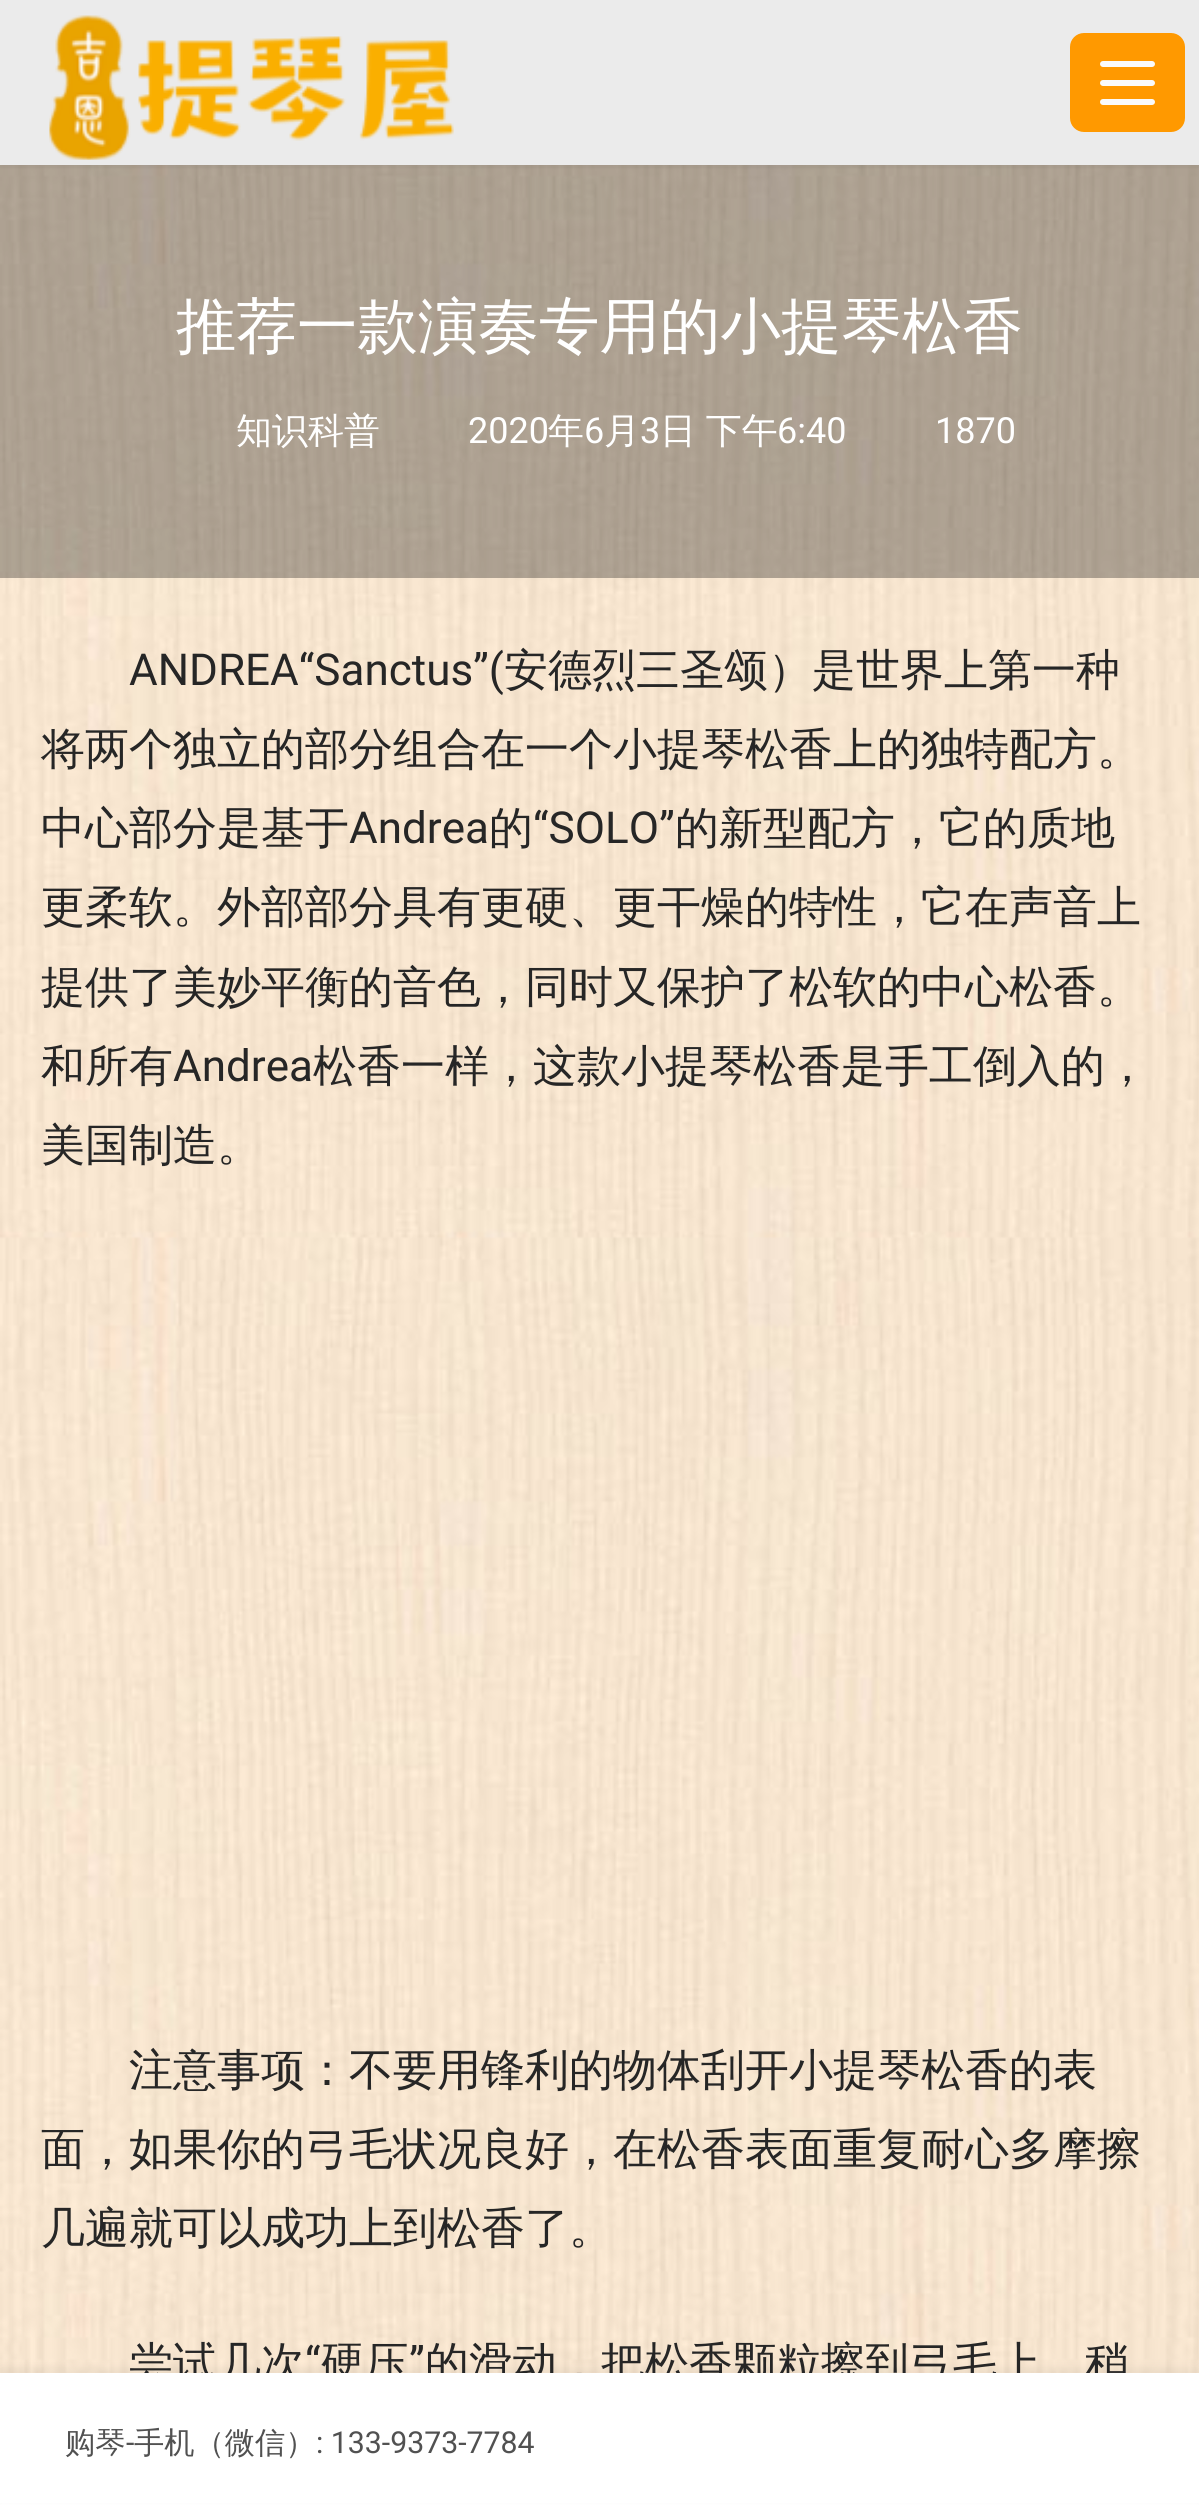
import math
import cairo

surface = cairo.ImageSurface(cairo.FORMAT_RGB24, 1199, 2505)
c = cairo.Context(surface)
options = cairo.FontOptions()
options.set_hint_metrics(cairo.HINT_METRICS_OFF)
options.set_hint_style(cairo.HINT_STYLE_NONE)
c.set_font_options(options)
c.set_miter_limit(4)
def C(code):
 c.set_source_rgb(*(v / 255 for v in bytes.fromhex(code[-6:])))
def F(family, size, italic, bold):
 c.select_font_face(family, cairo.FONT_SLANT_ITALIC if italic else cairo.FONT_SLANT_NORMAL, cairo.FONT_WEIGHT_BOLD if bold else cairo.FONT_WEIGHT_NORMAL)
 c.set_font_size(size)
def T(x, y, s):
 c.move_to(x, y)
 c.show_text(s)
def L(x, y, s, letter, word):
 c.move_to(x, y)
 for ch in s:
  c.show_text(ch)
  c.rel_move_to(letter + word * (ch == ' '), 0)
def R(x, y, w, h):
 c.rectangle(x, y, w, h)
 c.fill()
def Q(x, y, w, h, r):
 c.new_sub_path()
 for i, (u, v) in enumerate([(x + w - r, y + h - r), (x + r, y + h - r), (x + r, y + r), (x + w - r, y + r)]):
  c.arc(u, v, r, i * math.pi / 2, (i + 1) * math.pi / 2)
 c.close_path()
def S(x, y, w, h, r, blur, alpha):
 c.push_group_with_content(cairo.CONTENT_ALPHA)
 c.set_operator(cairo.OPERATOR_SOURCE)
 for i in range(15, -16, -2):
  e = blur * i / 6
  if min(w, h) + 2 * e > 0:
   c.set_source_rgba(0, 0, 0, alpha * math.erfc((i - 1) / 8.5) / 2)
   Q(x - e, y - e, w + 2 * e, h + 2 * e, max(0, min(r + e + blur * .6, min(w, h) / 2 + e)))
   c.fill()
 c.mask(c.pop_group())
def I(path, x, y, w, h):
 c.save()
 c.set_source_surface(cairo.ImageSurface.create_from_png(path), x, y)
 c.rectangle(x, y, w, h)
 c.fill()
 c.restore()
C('ffffff')
c.paint()
I('1.png',0,165,1199,2208)
c.set_source_rgba(0,0,0,0.3)
R(0,165,1199,413)
C('262626')
S(0,3,1199,165,0,1.5,.06)
C('ebebeb')
R(0,0,1199,165)
I('2.png',49,15,405,145)
C('ff9900')
Q(1070,33,115,99,14)
c.fill()
C('fafafa')
Q(1100,61,55,6,3)
c.fill()
Q(1100,80,55,6,3)
c.fill()
Q(1100,99,55,6,3)
c.fill()
F('WenQuanYi Zen Hei Medium',60.5,0,0)
C('ffffff')
T(176,347,'推荐一款演奏专用的小提琴松香')
F('WenQuanYi Zen Hei Medium',36,0,0)
T(236,443,'知识科普')
F('Roboto',36,0,0)
T(468,443,'2020')
F('WenQuanYi Zen Hei Medium',36,0,0)
T(548,443,'年')
F('Roboto',36,0,0)
T(584,443,'6')
F('WenQuanYi Zen Hei Medium',36,0,0)
T(604,443,'月')
F('Roboto',36,0,0)
T(640,443,'3')
F('WenQuanYi Zen Hei Medium',36,0,0)
L(660,443,'日 下午',0,-1)
F('Roboto',36,0,0)
T(777,443,'6:40')
T(935,443,'1870')
F('Roboto',44,0,0)
C('262626')
T(129,685,'ANDREA“Sanctus”(')
F('WenQuanYi Zen Hei Medium',44,0,0)
T(504,685,'安德烈三圣颂）是世界上第一种')
T(41,764,'将两个独立的部分组合在一个小提琴松香上的独特配方。')
T(41,843,'中心部分是基于')
F('Roboto',44,0,0)
T(349,843,'Andrea')
F('WenQuanYi Zen Hei Medium',44,0,0)
T(489,843,'的')
F('Roboto',44,0,0)
T(533,843,'“SOLO”')
F('WenQuanYi Zen Hei Medium',44,0,0)
T(675,843,'的新型配方，它的质地')
T(41,922,'更柔软。外部部分具有更硬、更干燥的特性，它在声音上')
T(41,1002,'提供了美妙平衡的音色，同时又保护了松软的中心松香。')
T(41,1081,'和所有')
F('Roboto',44,0,0)
T(173,1081,'Andrea')
F('WenQuanYi Zen Hei Medium',44,0,0)
T(313,1081,'松香一样，这款小提琴松香是手工倒入的，')
T(41,1160,'美国制造。')
T(129,2085,'注意事项：不要用锋利的物体刮开小提琴松香的表')
T(41,2164,'面，如果你的弓毛状况良好，在松香表面重复耐心多摩擦')
T(41,2243,'几遍就可以成功上到松香了。')
T(129,2378,'尝试几次')
F('Roboto',44,0,0)
T(305,2378,'“')
F('WenQuanYi Zen Hei Medium',44,0,0)
T(321,2378,'硬压')
F('Roboto',44,0,0)
T(409,2378,'”')
F('WenQuanYi Zen Hei Medium',44,0,0)
T(425,2378,'的滑动，把松香颗粒擦到弓毛上。稍')
C('262626')
S(0,2368,1199,132,0,4,.06)
C('ffffff')
R(0,2373,1199,130)
F('WenQuanYi Zen Hei Medium',30.25,0,0)
C('515151')
T(65,2453,'购琴')
F('Roboto',30.25,0,0)
T(126,2453,'-')
F('WenQuanYi Zen Hei Medium',30.25,0,0)
T(134,2453,'手机（微信）')
F('Roboto',30.25,0,0)
T(316,2453,': 133-9373-7784')
surface.write_to_png('o.png')
